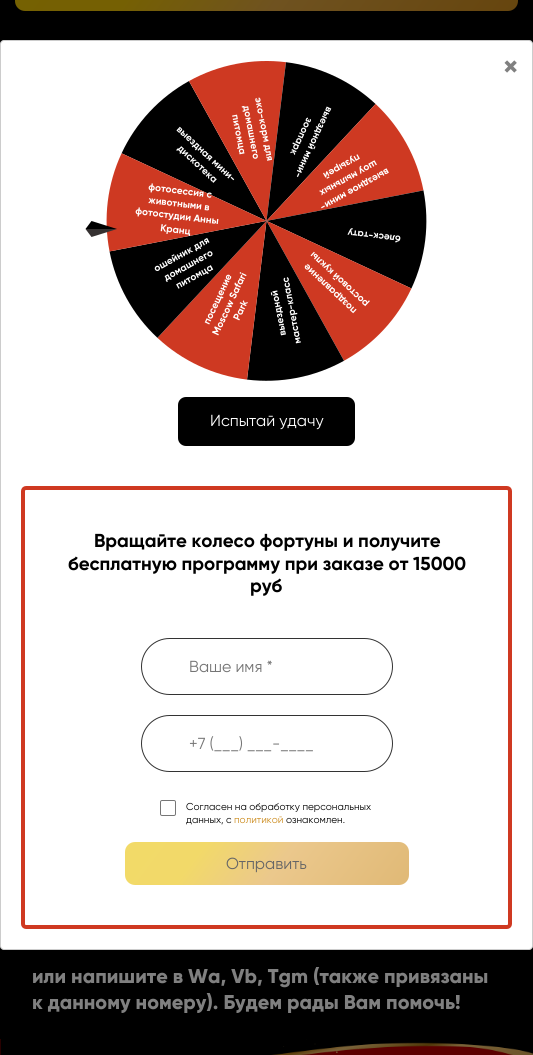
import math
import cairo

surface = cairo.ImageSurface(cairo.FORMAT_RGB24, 533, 1055)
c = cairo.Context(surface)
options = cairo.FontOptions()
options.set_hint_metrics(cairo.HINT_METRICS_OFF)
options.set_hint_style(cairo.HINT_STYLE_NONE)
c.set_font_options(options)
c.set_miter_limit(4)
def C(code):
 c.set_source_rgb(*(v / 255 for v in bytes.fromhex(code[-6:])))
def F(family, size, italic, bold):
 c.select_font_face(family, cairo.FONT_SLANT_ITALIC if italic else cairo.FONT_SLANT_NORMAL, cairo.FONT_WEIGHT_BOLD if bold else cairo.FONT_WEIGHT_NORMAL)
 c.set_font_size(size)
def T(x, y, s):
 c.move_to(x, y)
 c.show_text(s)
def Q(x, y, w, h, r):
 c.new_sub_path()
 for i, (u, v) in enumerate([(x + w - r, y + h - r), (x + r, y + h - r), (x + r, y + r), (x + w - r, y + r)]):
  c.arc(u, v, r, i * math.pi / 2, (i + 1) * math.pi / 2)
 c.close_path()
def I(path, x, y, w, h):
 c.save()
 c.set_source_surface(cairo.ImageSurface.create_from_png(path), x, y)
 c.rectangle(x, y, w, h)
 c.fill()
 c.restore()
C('000000')
c.paint()
C('ffffff')
Q(0,40,533,910,4)
c.fill()
Q(.5,40.5,532,909,3.5)
c.set_source_rgba(0,0,0,0.2)
c.set_line_width(1)
c.stroke()
F('Gilroy',30,0,1)
C('808080')
T(503,77,'×')
I('1.png',106,61,321,320)
C('000000')
c.new_path()
c.move_to(85.5,229)
c.line_to(91.5,221)
c.line_to(117,229)
c.close_path()
c.fill()
C('353131')
c.new_path()
c.move_to(117,229)
c.line_to(91.5,237)
c.line_to(85.5,229)
c.close_path()
c.fill()
F('Gilroy',10,0,1)
C('ffffff')
c.save()
c.translate(255,98)
c.rotate(79 * math.pi / 180)
T(0,0,'эко-корм для')
c.restore()
c.save()
c.translate(243,106)
c.rotate(79 * math.pi / 180)
T(0,0,'домашнего')
c.restore()
c.save()
c.translate(232,115)
c.rotate(79 * math.pi / 180)
T(0,0,'питомца')
c.restore()
c.save()
c.translate(176,130)
c.rotate(43 * math.pi / 180)
T(0,0,'выездная мини-')
c.restore()
c.save()
c.translate(177,149)
c.rotate(43 * math.pi / 180)
T(0,0,'дискотека')
c.restore()
c.save()
c.translate(387,168)
c.rotate(151 * math.pi / 180)
T(0,0,'выездное мини-')
c.restore()
c.save()
c.translate(375,160)
c.rotate(151 * math.pi / 180)
T(0,0,'шоу мыльных')
c.restore()
c.save()
c.translate(358,154)
c.rotate(151 * math.pi / 180)
T(0,0,'пузырей')
c.restore()
c.save()
c.translate(327,106)
c.rotate(115 * math.pi / 180)
T(0,0,'выездной мини-')
c.restore()
c.save()
c.translate(307,117)
c.rotate(115 * math.pi / 180)
T(0,0,'зоопарк')
c.restore()
c.save()
c.translate(148,190)
c.rotate(7 * math.pi / 180)
T(0,0,'фотосессия с')
c.restore()
c.save()
c.translate(148,203)
c.rotate(7 * math.pi / 180)
T(0,0,'животными в')
c.restore()
c.save()
c.translate(135,214)
c.rotate(7 * math.pi / 180)
T(0,0,'фотостудии Анны')
c.restore()
c.save()
c.translate(160,231)
c.rotate(7 * math.pi / 180)
T(0,0,'Кранц')
c.restore()
c.save()
c.translate(401,236)
c.rotate(-173 * math.pi / 180)
T(0,0,'блеск-тату')
c.restore()
c.save()
c.translate(156,272)
c.rotate(-29 * math.pi / 180)
T(0,0,'ошейник для')
c.restore()
c.save()
c.translate(166,281)
c.rotate(-29 * math.pi / 180)
T(0,0,'домашнего')
c.restore()
c.save()
c.translate(178,289)
c.rotate(-29 * math.pi / 180)
T(0,0,'питомца')
c.restore()
c.save()
c.translate(209,325)
c.rotate(-65 * math.pi / 180)
T(0,0,'посещение')
c.restore()
c.save()
c.translate(218,336)
c.rotate(-65 * math.pi / 180)
T(0,0,'Moscow Safari')
c.restore()
c.save()
c.translate(239,321)
c.rotate(-65 * math.pi / 180)
T(0,0,'Park')
c.restore()
c.save()
c.translate(286,335)
c.rotate(-101 * math.pi / 180)
T(0,0,'выездной')
c.restore()
c.save()
c.translate(301,343)
c.rotate(-101 * math.pi / 180)
T(0,0,'мастер-класс')
c.restore()
c.save()
c.translate(357,310)
c.rotate(-137 * math.pi / 180)
T(0,0,'поздравление')
c.restore()
c.save()
c.translate(369,303)
c.rotate(-137 * math.pi / 180)
T(0,0,'ростовой куклы')
c.restore()
C('000000')
Q(178,397,177,49,8)
c.fill()
F('Gilroy',16,0,0)
C('ffffff')
T(210,426,'Испытай удачу')
Q(23,488,487,439,3)
C('cf3921')
c.set_line_width(4)
c.stroke()
F('Gilroy',18.75,0,1)
C('000000')
T(94,547,'Вращайте колесо фортуны и получите')
T(68,570,'бесплатную программу при заказе от 15000')
T(250,592,'руб')
Q(141.5,638.5,251,56,28)
C('333333')
c.set_line_width(1)
c.stroke()
F('Gilroy',16,0,0)
C('757575')
T(189,672,'Ваше имя *')
Q(141.5,715.5,251,56,28)
C('333333')
c.stroke()
C('757575')
T(189,749,'+7 (___) ___-____')
Q(160.5,800.5,15,15,1.5)
C('767676')
c.stroke()
F('Gilroy',10,0,0)
C('000000')
T(186,810,'Согласен на обработку персональных')
T(186,823,'данных, с')
C('cb8a1b')
T(234,823,'политикой')
C('000000')
T(286,823,'ознакомлен.')
gradient = cairo.LinearGradient(368,940,166,787)
gradient.add_color_stop_rgba(0,0.878,0.725,0.463,1)
gradient.add_color_stop_rgba(.46,0.922,0.784,0.549,1)
gradient.add_color_stop_rgba(.74,0.949,0.851,0.412,1)
gradient.add_color_stop_rgba(1,0.949,0.855,0.408,1)
c.set_source(gradient)
Q(125,842,284,43,10)
c.fill()
F('Gilroy',16,0,0)
C('666666')
T(226,869,'Отправить')
gradient = cairo.LinearGradient(439,116,94,-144)
gradient.add_color_stop_rgba(0,0.4,0.271,0.055,1)
gradient.add_color_stop_rgba(.46,0.435,0.322,0.125,1)
gradient.add_color_stop_rgba(.74,0.459,0.376,0.012,1)
gradient.add_color_stop_rgba(1,0.459,0.38,0.008,1)
c.set_source(gradient)
Q(15,-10,503,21,10)
c.fill()
F('Gilroy ExtraBold',20,0,0)
C('808080')
T(32,983,'или напишите в Wa, Vb, Tgm (также привязаны')
T(32,1009,'к данному номеру). Будем рады Вам помочь!')
I('2.png',0,1039,533,16)
surface.write_to_png('o.png')
